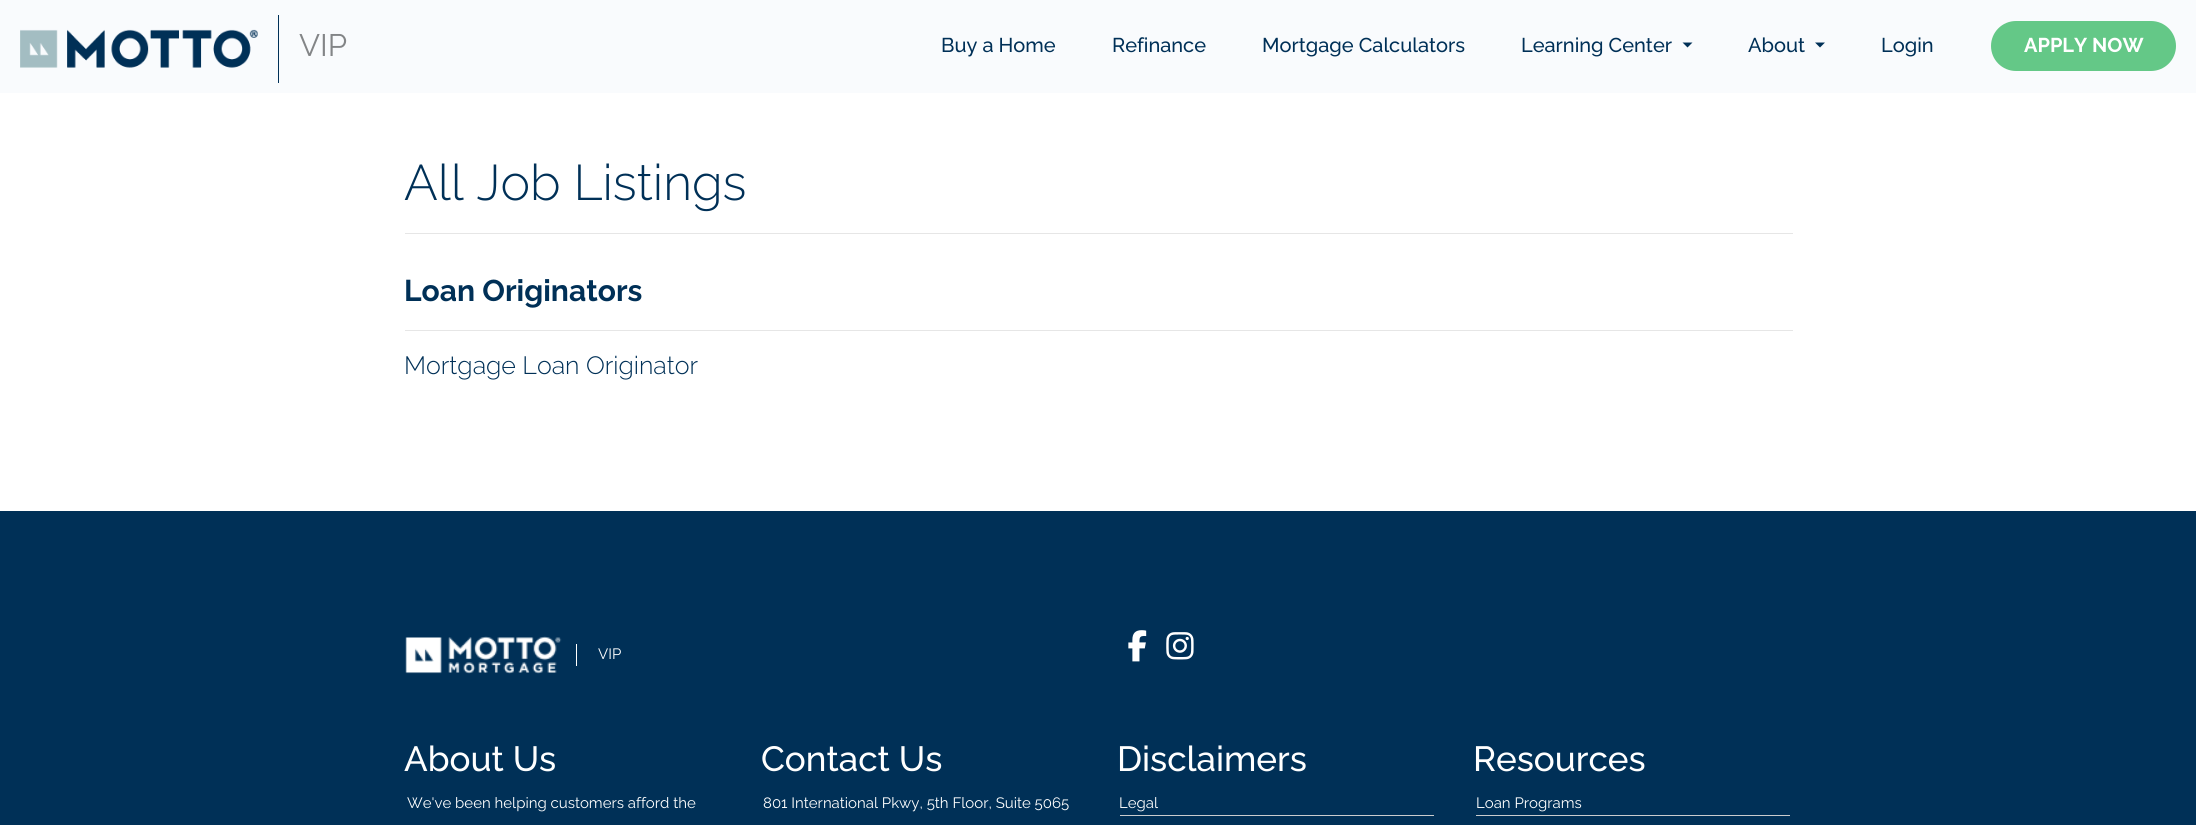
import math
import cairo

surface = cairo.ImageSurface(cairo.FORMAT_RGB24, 2196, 825)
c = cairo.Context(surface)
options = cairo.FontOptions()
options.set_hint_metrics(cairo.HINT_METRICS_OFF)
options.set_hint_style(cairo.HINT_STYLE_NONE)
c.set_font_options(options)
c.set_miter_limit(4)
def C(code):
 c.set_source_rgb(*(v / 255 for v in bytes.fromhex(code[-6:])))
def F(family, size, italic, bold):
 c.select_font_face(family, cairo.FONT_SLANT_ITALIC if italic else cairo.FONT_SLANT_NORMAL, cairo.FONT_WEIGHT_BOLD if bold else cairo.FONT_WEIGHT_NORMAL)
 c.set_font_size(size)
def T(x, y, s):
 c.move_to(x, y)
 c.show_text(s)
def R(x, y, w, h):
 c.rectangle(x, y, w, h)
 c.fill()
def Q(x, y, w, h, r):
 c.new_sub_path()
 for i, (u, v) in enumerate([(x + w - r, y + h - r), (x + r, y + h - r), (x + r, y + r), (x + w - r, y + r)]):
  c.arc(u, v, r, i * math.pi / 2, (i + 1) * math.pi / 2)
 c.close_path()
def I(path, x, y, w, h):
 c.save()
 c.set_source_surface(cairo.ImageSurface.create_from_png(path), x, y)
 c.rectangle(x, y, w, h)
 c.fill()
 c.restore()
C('ffffff')
c.paint()
C('f9fbfd')
R(0,0,2196,93)
C('003057')
R(278,15,1,68)
I('1.png',20,29,238,39)
F('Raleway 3 Thin',31,0,0)
C('838587')
T(299,56,'VIP')
F('Raleway Medium',20,0,0)
C('003057')
T(941,52,'Buy a Home')
T(1112,52,'Refinance')
T(1262,52,'Mortgage Calculators')
T(1521,52,'Learning Center')
c.new_path()
c.move_to(1682.5,42.5)
c.line_to(1692.5,42.5)
c.line_to(1687.5,47.5)
c.close_path()
c.fill()
T(1748,52,'About')
c.new_path()
c.move_to(1815,42.5)
c.line_to(1825,42.5)
c.line_to(1820,47.5)
c.close_path()
c.fill()
T(1881,52,'Login')
C('64c887')
Q(1992.5,22.5,182,47,23.5)
c.fill_preserve()
c.set_line_width(3)
c.stroke()
F('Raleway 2 Thin',20,0,0)
C('ffffff')
T(2024,52,'APPLY NOW')
F('Raleway Thin',50,0,0)
C('003057')
T(404,200,'All Job Listings')
C('e6e6e6')
R(405,233,1388,1)
F('Raleway 2 Thin',30,0,0)
C('003057')
T(404,301,'Loan Originators')
C('e6e6e6')
R(405,330,1388,1)
F('Raleway Thin',25,0,0)
C('003057')
T(404,374,'Mortgage Loan Originator')
R(0,511,2196,314)
I('2.png',405,636,157,38)
C('ffffff')
R(576,644,1,22)
F('Raleway 3 Thin',15,0,0)
T(598,659,'VIP')
I('3.png',1128,630,19,32)
I('4.png',1166,632,28,28)
F('Raleway Medium',35,0,0)
T(404,771,'About Us')
F('Raleway 3 Thin',15,0,0)
T(407,808,'We\'ve been helping customers afford the')
F('Raleway Medium',35,0,0)
T(761,771,'Contact Us')
F('Raleway 3 Thin',15,0,0)
T(763,808,'801 International Pkwy, 5th Floor, Suite 5065')
F('Raleway Medium',35,0,0)
T(1117,771,'Disclaimers')
C('caccce')
R(1120,815,314,1)
F('Raleway 3 Thin',15,0,0)
C('ffffff')
T(1119,808,'Legal')
F('Raleway Medium',35,0,0)
T(1473,771,'Resources')
C('caccce')
R(1476,815,314,1)
F('Raleway 3 Thin',15,0,0)
C('ffffff')
T(1476,808,'Loan Programs')
surface.write_to_png('o.png')
